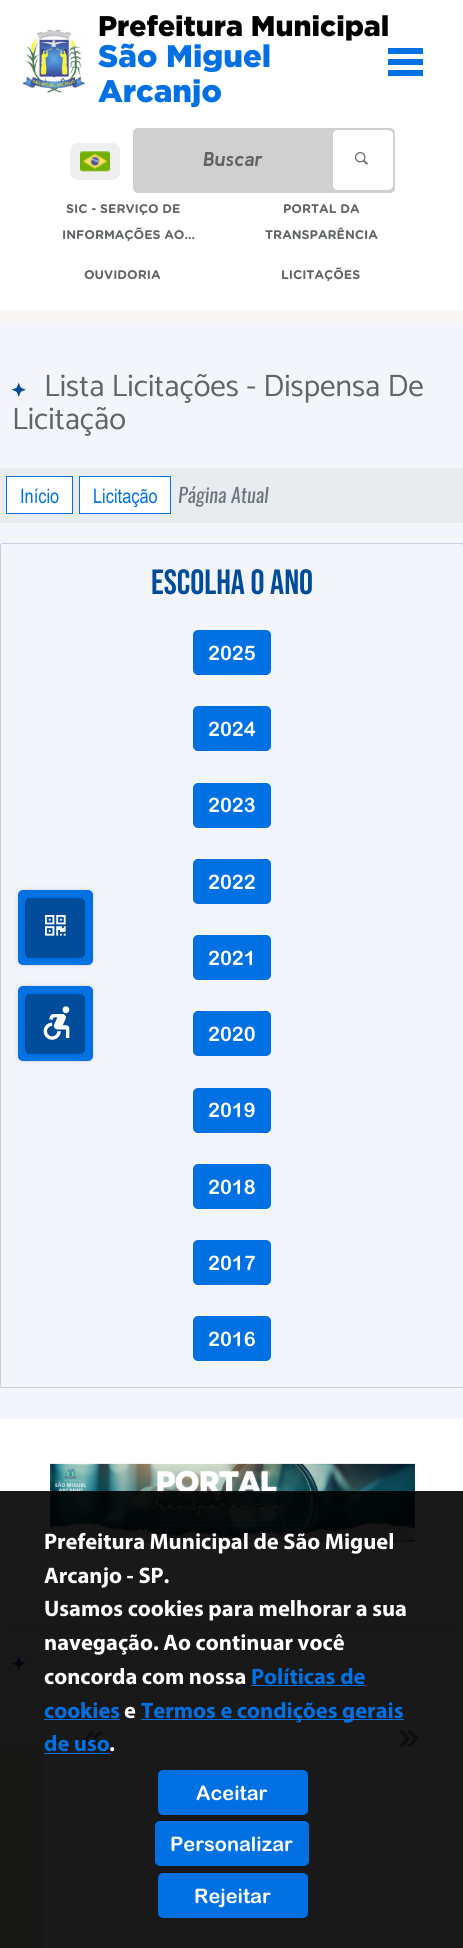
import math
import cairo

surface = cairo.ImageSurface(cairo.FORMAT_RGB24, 463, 1948)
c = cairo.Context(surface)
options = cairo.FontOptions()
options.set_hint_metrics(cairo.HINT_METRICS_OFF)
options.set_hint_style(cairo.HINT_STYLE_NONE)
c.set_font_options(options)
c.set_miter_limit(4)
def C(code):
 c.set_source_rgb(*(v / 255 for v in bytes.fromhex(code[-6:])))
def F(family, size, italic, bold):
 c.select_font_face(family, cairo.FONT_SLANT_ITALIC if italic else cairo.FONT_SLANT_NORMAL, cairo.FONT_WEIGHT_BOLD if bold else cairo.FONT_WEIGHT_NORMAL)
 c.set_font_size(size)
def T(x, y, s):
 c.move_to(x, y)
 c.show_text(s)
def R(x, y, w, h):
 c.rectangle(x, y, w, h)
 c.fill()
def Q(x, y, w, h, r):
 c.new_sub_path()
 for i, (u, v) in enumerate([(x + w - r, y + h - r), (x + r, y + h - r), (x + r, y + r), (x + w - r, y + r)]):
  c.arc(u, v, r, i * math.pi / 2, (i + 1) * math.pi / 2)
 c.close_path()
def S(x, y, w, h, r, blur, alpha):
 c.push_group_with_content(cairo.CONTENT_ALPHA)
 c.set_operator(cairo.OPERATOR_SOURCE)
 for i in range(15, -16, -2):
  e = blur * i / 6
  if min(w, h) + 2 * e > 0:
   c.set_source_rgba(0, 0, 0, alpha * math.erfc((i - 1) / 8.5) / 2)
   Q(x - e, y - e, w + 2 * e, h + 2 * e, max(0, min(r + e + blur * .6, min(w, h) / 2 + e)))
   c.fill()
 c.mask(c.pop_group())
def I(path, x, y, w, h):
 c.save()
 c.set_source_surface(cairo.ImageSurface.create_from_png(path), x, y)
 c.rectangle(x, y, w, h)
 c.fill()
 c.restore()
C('f7f6f2')
c.paint()
C('ffffff')
R(0,0,463,310)
I('1.png',22,30,63,63)
F('Gotham Black',28.4,0,0)
C('000000')
T(98,36,'Prefeitura Municipal')
F('Gotham Black',31.1,0,0)
C('0070e3')
T(98,67,'São Miguel')
T(98,102,'Arcanjo')
R(388,48,35,6)
R(388,59,35,6)
R(388,70,35,6)
C('efefef')
Q(70,143,50,37,8)
c.fill()
I('2.png',80,151,30,21)
C('d0d0d0')
Q(133,128,262,65,5)
c.fill()
F('Kulim Park',20,1,1)
C('606466')
T(203,166,'Buscar')
C('ffffff')
Q(333,130,60,60,5)
c.fill()
I('3.png',355,152,13,13)
F('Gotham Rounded',12.5,0,1)
C('606466')
T(66,213,'SIC - SERVIÇO DE')
T(62,239,'INFORMAÇÕES AO…')
T(283,213,'PORTAL DA')
T(265,239,'TRANSPARÊNCIA')
T(84,279,'OUVIDORIA')
T(281,279,'LICITAÇÕES')
C('f4f5fa')
R(0,323,463,1096)
I('4.png',11,382,15,15)
F('Catamaran',31.1,0,0)
C('606466')
T(44,396,'Lista Licitações - Dispensa De')
T(12,429,'Licitação')
C('e9ecef')
R(0,468,463,55)
C('ffffff')
c.rectangle(6.5,476.5,66,37)
c.fill_preserve()
C('0070e3')
c.set_line_width(1)
c.stroke()
F('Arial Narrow',20,0,0)
T(20,503,'Início')
C('ffffff')
c.rectangle(79.5,476.5,91,37)
c.fill_preserve()
C('0070e3')
c.stroke()
T(93,503,'Licitação')
F('Oswald',20,1,0)
C('6c757d')
T(178,503,'Página Atual')
Q(.5,543.5,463,844,2)
C('c9cee1')
c.stroke()
F('Bebas Neue',35,0,0)
C('004c9a')
T(151,594,'Escolha o ano')
C('0070e3')
Q(193,630,78,45,5)
c.fill()
F('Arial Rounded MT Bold',20,0,1)
C('ffffff')
T(208,660,'2025')
C('0070e3')
Q(193,706,78,45,5)
c.fill()
C('ffffff')
T(208,736,'2024')
C('0070e3')
Q(193,783,78,45,5)
c.fill()
C('ffffff')
T(208,812,'2023')
C('0070e3')
Q(193,859,78,45,5)
c.fill()
C('ffffff')
T(208,889,'2022')
C('0070e3')
Q(193,935,78,45,5)
c.fill()
C('ffffff')
T(208,965,'2021')
C('0070e3')
Q(193,1011,78,45,5)
c.fill()
C('ffffff')
T(208,1041,'2020')
C('0070e3')
Q(193,1088,78,45,5)
c.fill()
C('ffffff')
T(208,1117,'2019')
C('0070e3')
Q(193,1164,78,45,5)
c.fill()
C('ffffff')
T(208,1194,'2018')
C('0070e3')
Q(193,1240,78,45,5)
c.fill()
C('ffffff')
T(208,1270,'2017')
C('0070e3')
Q(193,1316,78,45,5)
c.fill()
C('ffffff')
T(208,1346,'2016')
R(0,1419,463,176)
I('5.png',50,1463,365,79)
C('e8e7e3')
R(11,1626,442,1)
I('6.png',11,1656,15,15)
c.new_path()
c.move_to(4,1750)
c.curve_to(1,1750,-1,1752,-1,1755)
c.line_to(-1,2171)
c.curve_to(-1,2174,1,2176,4,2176)
c.line_to(411,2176)
c.curve_to(414,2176,416,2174,416,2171)
c.line_to(416,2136)
c.line_to(47,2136)
c.curve_to(44,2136,42,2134,42,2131)
c.line_to(42,1750)
c.close_path()
c.fill()
C('ffffff')
Q(43,1710,417,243,5)
c.fill()
I('7.png',83,1730,19,19)
I('8.png',399,1729,20,19)
c.set_source_rgba(0,0,0,0.9)
R(0,1491,463,457)
F('Myriad',22.5,0,1)
C('ffffff')
T(44,1549,'Prefeitura Municipal de São Miguel')
T(44,1583,'Arcanjo - SP.')
T(44,1616,'Usamos cookies para melhorar a sua')
T(44,1650,'navegação. Ao continuar você')
T(44,1684,'concorda com nossa')
C('0070e3')
T(251,1684,'Políticas de')
R(251,1685,114,1)
T(44,1718,'cookies')
R(44,1719,76,1)
C('ffffff')
T(124,1718,'e')
C('0070e3')
R(141,1719,263,1)
T(141,1718,'Termos e condições gerais')
T(44,1751,'de uso')
R(44,1753,66,1)
C('ffffff')
T(109,1751,'.')
C('0070e3')
Q(158,1770,150,45,5)
c.fill()
F('Arial Rounded MT Bold',20,0,1)
C('ffffff')
T(196,1800,'Aceitar')
C('0070e3')
Q(155,1821,154,45,5)
c.fill()
C('ffffff')
T(170,1851,'Personalizar')
C('0070e3')
Q(158,1873,150,45,5)
c.fill()
C('ffffff')
T(194,1903,'Rejeitar')
C('cbd0d6')
S(18,890,75,75,5,2,1)
C('0070e3')
Q(18,890,75,75,5)
c.fill()
C('004c9a')
Q(25,898,60,60,5)
c.fill()
I('9.png',45,915,21,21)
C('cbd0d6')
S(18,986,75,75,5,2,1)
C('0070e3')
Q(18,986,75,75,5)
c.fill()
C('004c9a')
Q(25,994,60,60,5)
c.fill()
I('10.png',43,1006,27,34)
surface.write_to_png('o.png')
